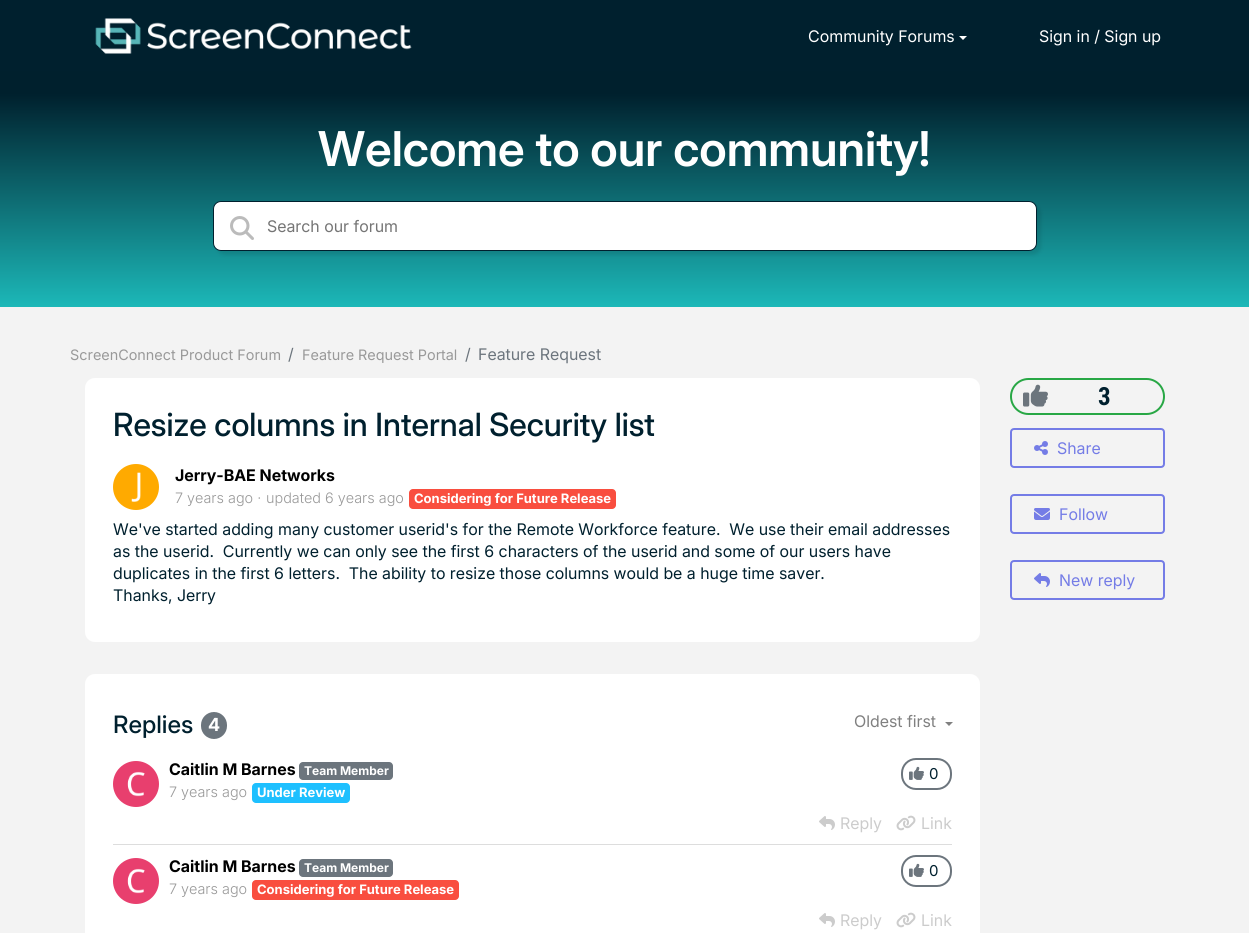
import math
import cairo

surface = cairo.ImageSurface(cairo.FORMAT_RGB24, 1249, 933)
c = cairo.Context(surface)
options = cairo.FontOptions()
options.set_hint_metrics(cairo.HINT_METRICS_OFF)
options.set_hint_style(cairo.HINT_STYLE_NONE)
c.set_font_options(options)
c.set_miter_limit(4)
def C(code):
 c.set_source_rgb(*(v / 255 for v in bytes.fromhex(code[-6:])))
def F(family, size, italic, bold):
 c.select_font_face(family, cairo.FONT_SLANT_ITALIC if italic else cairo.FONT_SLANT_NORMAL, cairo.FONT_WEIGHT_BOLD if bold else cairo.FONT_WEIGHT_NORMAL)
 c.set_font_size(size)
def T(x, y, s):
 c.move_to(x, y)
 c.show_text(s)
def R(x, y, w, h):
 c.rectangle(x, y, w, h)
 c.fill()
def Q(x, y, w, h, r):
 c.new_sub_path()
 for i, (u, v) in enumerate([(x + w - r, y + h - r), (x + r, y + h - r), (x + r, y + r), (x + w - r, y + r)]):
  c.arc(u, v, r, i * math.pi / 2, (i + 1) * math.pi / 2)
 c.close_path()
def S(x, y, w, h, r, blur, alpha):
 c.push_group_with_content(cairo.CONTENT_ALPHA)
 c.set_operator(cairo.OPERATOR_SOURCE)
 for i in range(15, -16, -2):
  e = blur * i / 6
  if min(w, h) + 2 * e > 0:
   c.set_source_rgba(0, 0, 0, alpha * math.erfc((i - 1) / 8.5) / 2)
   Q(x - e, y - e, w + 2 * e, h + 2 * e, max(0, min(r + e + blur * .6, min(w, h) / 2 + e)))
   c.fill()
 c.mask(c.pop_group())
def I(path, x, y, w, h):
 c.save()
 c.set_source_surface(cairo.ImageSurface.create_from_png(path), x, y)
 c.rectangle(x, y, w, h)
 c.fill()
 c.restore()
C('f3f3f3')
c.paint()
C('00202e')
R(0,0,1249,71)
I('1.png',95,18,317,36)
F('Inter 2',16,0,0)
C('ffffff')
T(808,42,'Community Forums')
c.new_path()
c.move_to(959,36)
c.line_to(967,36)
c.line_to(963,40)
c.close_path()
c.fill()
T(1039,42,'Sign in / Sign up')
gradient = cairo.LinearGradient(625,2,625,307)
gradient.add_color_stop_rgba(.3,0,0.125,0.176,1)
gradient.add_color_stop_rgba(1,0.11,0.722,0.722,1)
c.set_source(gradient)
R(0,71,1249,236)
F('Inter SemiBold',48,0,0)
C('ffffff')
T(318,166,'Welcome to our community!')
C('000000')
S(217,205,824,50,8,2,.1)
C('ffffff')
Q(213.5,201.5,823,49,7.5)
c.fill_preserve()
C('00202e')
c.set_line_width(1)
c.stroke()
I('2.png',230,216,24,24)
F('Inter 2',16,0,0)
C('757575')
T(267,232,'Search our forum')
F('Inter',14.4,0,0)
C('999999')
T(70,360,'ScreenConnect Product Forum')
F('Inter 2',16,0,0)
C('6c757d')
T(288,360,'/')
F('Inter',14.4,0,0)
C('999999')
T(302,360,'Feature Request Portal')
F('Inter 2',16,0,0)
C('6c757d')
T(465,360,'/')
T(478,360,'Feature Request')
C('ffffff')
Q(85,378,895,264,10)
c.fill()
F('Inter Medium',32,0,0)
C('00202e')
T(113,436,'Resize columns in Internal Security list')
C('ffaa00')
c.new_path()
c.arc(136,487,23,0,2 * math.pi)
c.fill()
I('3.png',131,472,10,30)
F('Inter',16,0,1)
C('000000')
T(175,481,'Jerry-BAE Networks')
F('Inter Light',14.4,0,0)
C('999999')
T(175,503,'7 years ago ·')
T(266,503,'updated 6 years ago')
C('f94e3f')
Q(409,489,207,20,4)
c.fill()
F('Inter 2',13,0,1)
C('ffffff')
T(414,503,'Considering for Future Release')
F('Inter 2',16,0,0)
C('00202e')
T(113,535,'We\'ve started adding many customer userid\'s for the Remote Workforce feature.  We use their email addresses')
T(113,557,'as the userid.  Currently we can only see the first 6 characters of the userid and some of our users have')
T(113,579,'duplicates in the first 6 letters.  The ability to resize those columns would be a huge time saver.')
T(113,601,'Thanks, Jerry')
Q(1011,379,153,35,17.5)
C('28a745')
c.set_line_width(2)
c.stroke()
I('4.png',1023,384,25,23)
F('Roboto Condensed',25,0,1)
C('00202e')
T(1098,405,'3')
Q(1011,429,153,38,3)
C('747ce6')
c.stroke()
I('5.png',1034,441,14,14)
F('Inter 2',16,0,0)
T(1057,454,'Share')
Q(1011,495,153,38,3)
c.stroke()
I('6.png',1034,508,16,12)
T(1059,520,'Follow')
Q(1011,561,153,38,3)
c.stroke()
I('7.png',1034,573,16,14)
T(1059,586,'New reply')
C('ffffff')
Q(85,674,895,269,10)
c.fill()
F('Inter 2 Medium',24,0,0)
C('00202e')
T(113,733,'Replies')
C('6c757d')
Q(201,712,26,27,13)
c.fill()
F('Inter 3',18,0,1)
C('ffffff')
T(208,731,'4')
F('Inter 2',16,0,0)
C('808080')
T(854,727,'Oldest first')
c.new_path()
c.move_to(945,722)
c.line_to(953,722)
c.line_to(949,726)
c.close_path()
c.fill()
C('dddddd')
R(113,844,839,1)
C('e83f6e')
c.arc(136,784,23,0,2 * math.pi)
c.fill()
I('8.png',127,771,18,26)
F('Inter',16,0,1)
C('000000')
T(169,775,'Caitlin M Barnes')
C('6c757d')
Q(299,762,94,18,4)
c.fill()
F('Inter 2',12,0,1)
C('ffffff')
T(304,775,'Team Member')
F('Inter Light',14.4,0,0)
C('999999')
T(169,797,'7 years ago')
C('1ec0ff')
Q(252,783,98,20,4)
c.fill()
F('Inter 2',13,0,1)
C('ffffff')
T(257,797,'Under Review')
Q(902,759,49,30,14)
C('6c757d')
c.stroke()
I('9.png',909,766,15,14)
F('Inter',15,0,0)
C('00202e')
T(929,779,'0')
I('10.png',819,816,16,14)
F('Inter 2',16,0,0)
C('cccccc')
T(840,829,'Reply')
I('11.png',896,815,20,16)
T(921,829,'Link')
C('e83f6e')
c.new_path()
c.arc(136,881,23,0,2 * math.pi)
c.fill()
I('8.png',127,868,18,26)
F('Inter',16,0,1)
C('000000')
T(169,872,'Caitlin M Barnes')
C('6c757d')
Q(299,859,94,18,4)
c.fill()
F('Inter 2',12,0,1)
C('ffffff')
T(304,872,'Team Member')
F('Inter Light',14.4,0,0)
C('999999')
T(169,894,'7 years ago')
C('f94e3f')
Q(252,880,207,20,4)
c.fill()
F('Inter 2',13,0,1)
C('ffffff')
T(257,894,'Considering for Future Release')
Q(902,856,49,30,14)
C('6c757d')
c.stroke()
I('9.png',909,863,15,14)
F('Inter',15,0,0)
C('00202e')
T(929,876,'0')
I('10.png',819,913,16,14)
F('Inter 2',16,0,0)
C('cccccc')
T(840,926,'Reply')
I('11.png',896,912,20,16)
T(921,926,'Link')
surface.write_to_png('o.png')
